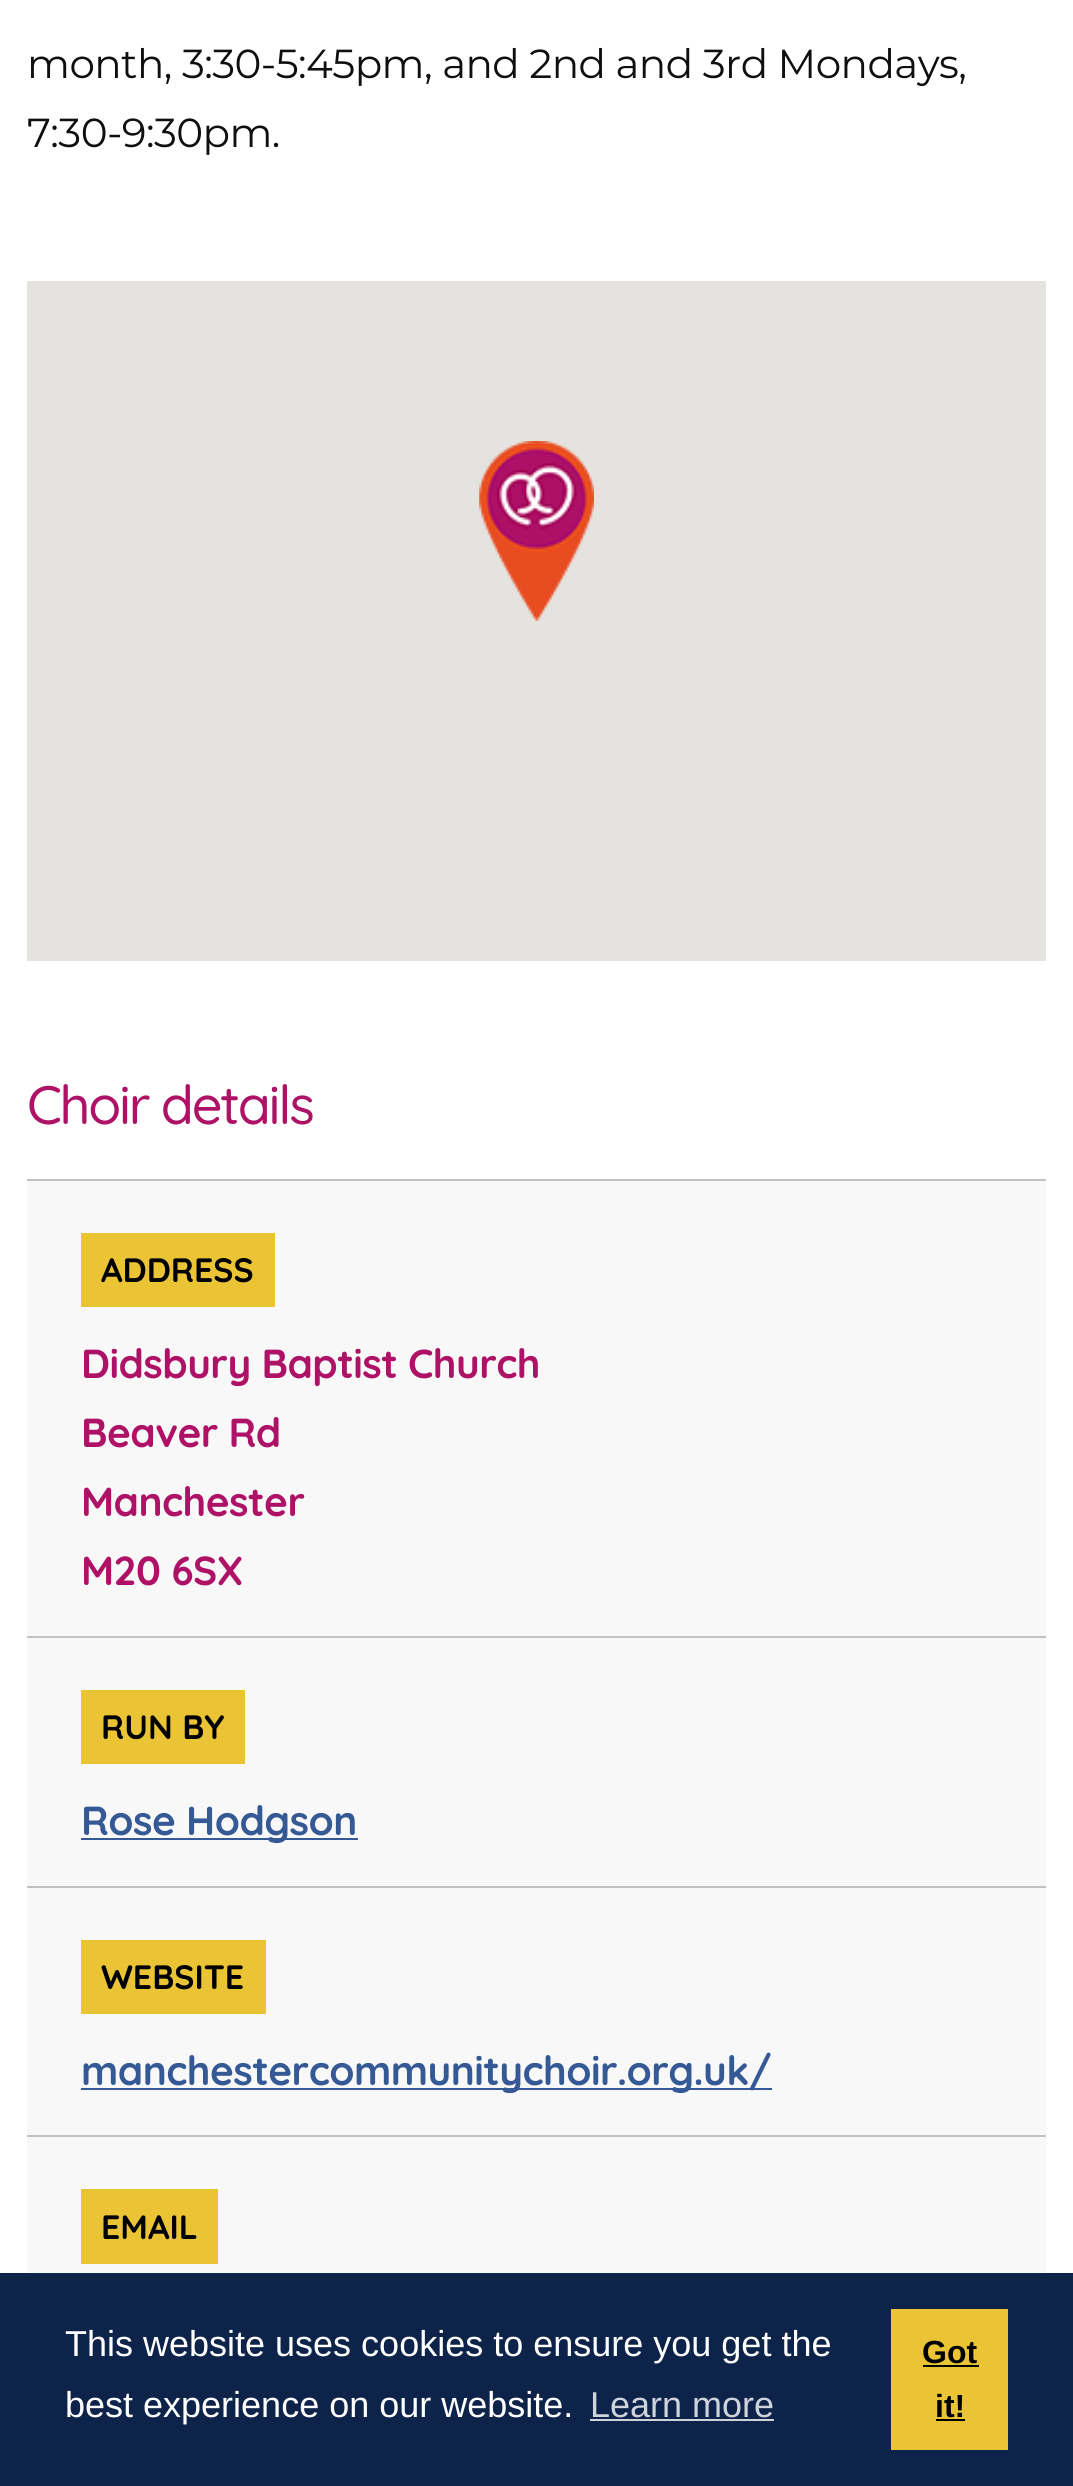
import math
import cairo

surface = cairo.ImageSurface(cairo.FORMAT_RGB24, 1073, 2486)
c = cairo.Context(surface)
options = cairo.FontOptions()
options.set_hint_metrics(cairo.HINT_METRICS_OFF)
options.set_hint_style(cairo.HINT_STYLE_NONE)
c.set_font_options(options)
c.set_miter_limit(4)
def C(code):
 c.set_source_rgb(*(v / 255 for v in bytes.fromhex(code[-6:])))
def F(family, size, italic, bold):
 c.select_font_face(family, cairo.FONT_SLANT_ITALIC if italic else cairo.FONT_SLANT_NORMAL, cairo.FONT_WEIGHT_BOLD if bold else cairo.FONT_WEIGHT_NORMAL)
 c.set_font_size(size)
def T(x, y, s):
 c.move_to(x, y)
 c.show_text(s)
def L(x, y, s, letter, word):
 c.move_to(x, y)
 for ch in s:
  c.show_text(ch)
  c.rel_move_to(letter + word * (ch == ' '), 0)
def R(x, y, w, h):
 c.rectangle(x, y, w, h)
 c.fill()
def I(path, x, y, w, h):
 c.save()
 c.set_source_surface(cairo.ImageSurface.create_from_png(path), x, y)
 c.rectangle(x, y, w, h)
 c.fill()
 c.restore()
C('ffffff')
c.paint()
F('Montserrat Thin',40.5,0,0)
C('0f0f0f')
L(27,78,'month, 3:30-5:45pm, and 2nd and 3rd Mondays,',-.55,0)
L(27,147,'7:30-9:30pm.',-.55,0)
C('e5e3df')
R(27,281,1019,680)
I('1.png',479,441,115,180)
F('Quicksand Medium',54,0,0)
C('ae1267')
L(27,1124,'Choir details',-2.25,0)
C('f8f8f8')
R(27,1181,1019,455)
C('c1c1c1')
R(27,1179,1019,2)
C('eac435')
R(81,1233,194,74)
F('Quicksand',33.75,0,1)
C('000000')
T(101,1282,'ADDRESS')
F('Quicksand',40.5,0,1)
C('ae1267')
L(81,1378,'Didsbury Baptist Church',-.55,0)
L(81,1447,'Beaver Rd',-.55,0)
L(81,1516,'Manchester',-.55,0)
L(81,1585,'M20 6SX',-.55,0)
C('f8f8f8')
R(27,1638,1019,248)
C('c1c1c1')
R(27,1636,1019,2)
C('eac435')
R(81,1690,164,74)
F('Quicksand',33.75,0,1)
C('000000')
T(101,1739,'RUN BY')
C('345995')
R(81,1838,277,2)
F('Quicksand',40.5,0,1)
L(81,1835,'Rose Hodgson',-.55,0)
C('f8f8f8')
R(27,1888,1019,247)
C('c1c1c1')
R(27,1886,1019,2)
C('eac435')
R(81,1940,185,74)
F('Quicksand',33.75,0,1)
C('000000')
T(101,1989,'WEBSITE')
C('345995')
R(81,2088,691,2)
F('Quicksand',40.5,0,1)
L(81,2085,'manchestercommunitychoir.org.uk/',-.55,0)
C('f8f8f8')
R(27,2137,1019,136)
C('c1c1c1')
R(27,2135,1019,2)
C('eac435')
R(81,2189,137,75)
F('Quicksand',33.75,0,1)
C('000000')
T(101,2239,'EMAIL')
C('0e234a')
R(0,2273,1073,213)
F('Liberation Sans',36,0,0)
C('ffffff')
T(65,2356,'This website uses cookies to ensure you get the')
T(65,2417,'best experience on our website.')
C('cfd3db')
T(590,2417,'Learn more')
R(590,2419,184,2)
C('eac435')
R(891,2309,117,141)
F('Liberation Sans',32,0,1)
C('000000')
T(922,2363,'Got')
R(923,2365,56,2)
T(935,2417,'it!')
R(936,2419,29,2)
surface.write_to_png('o.png')
